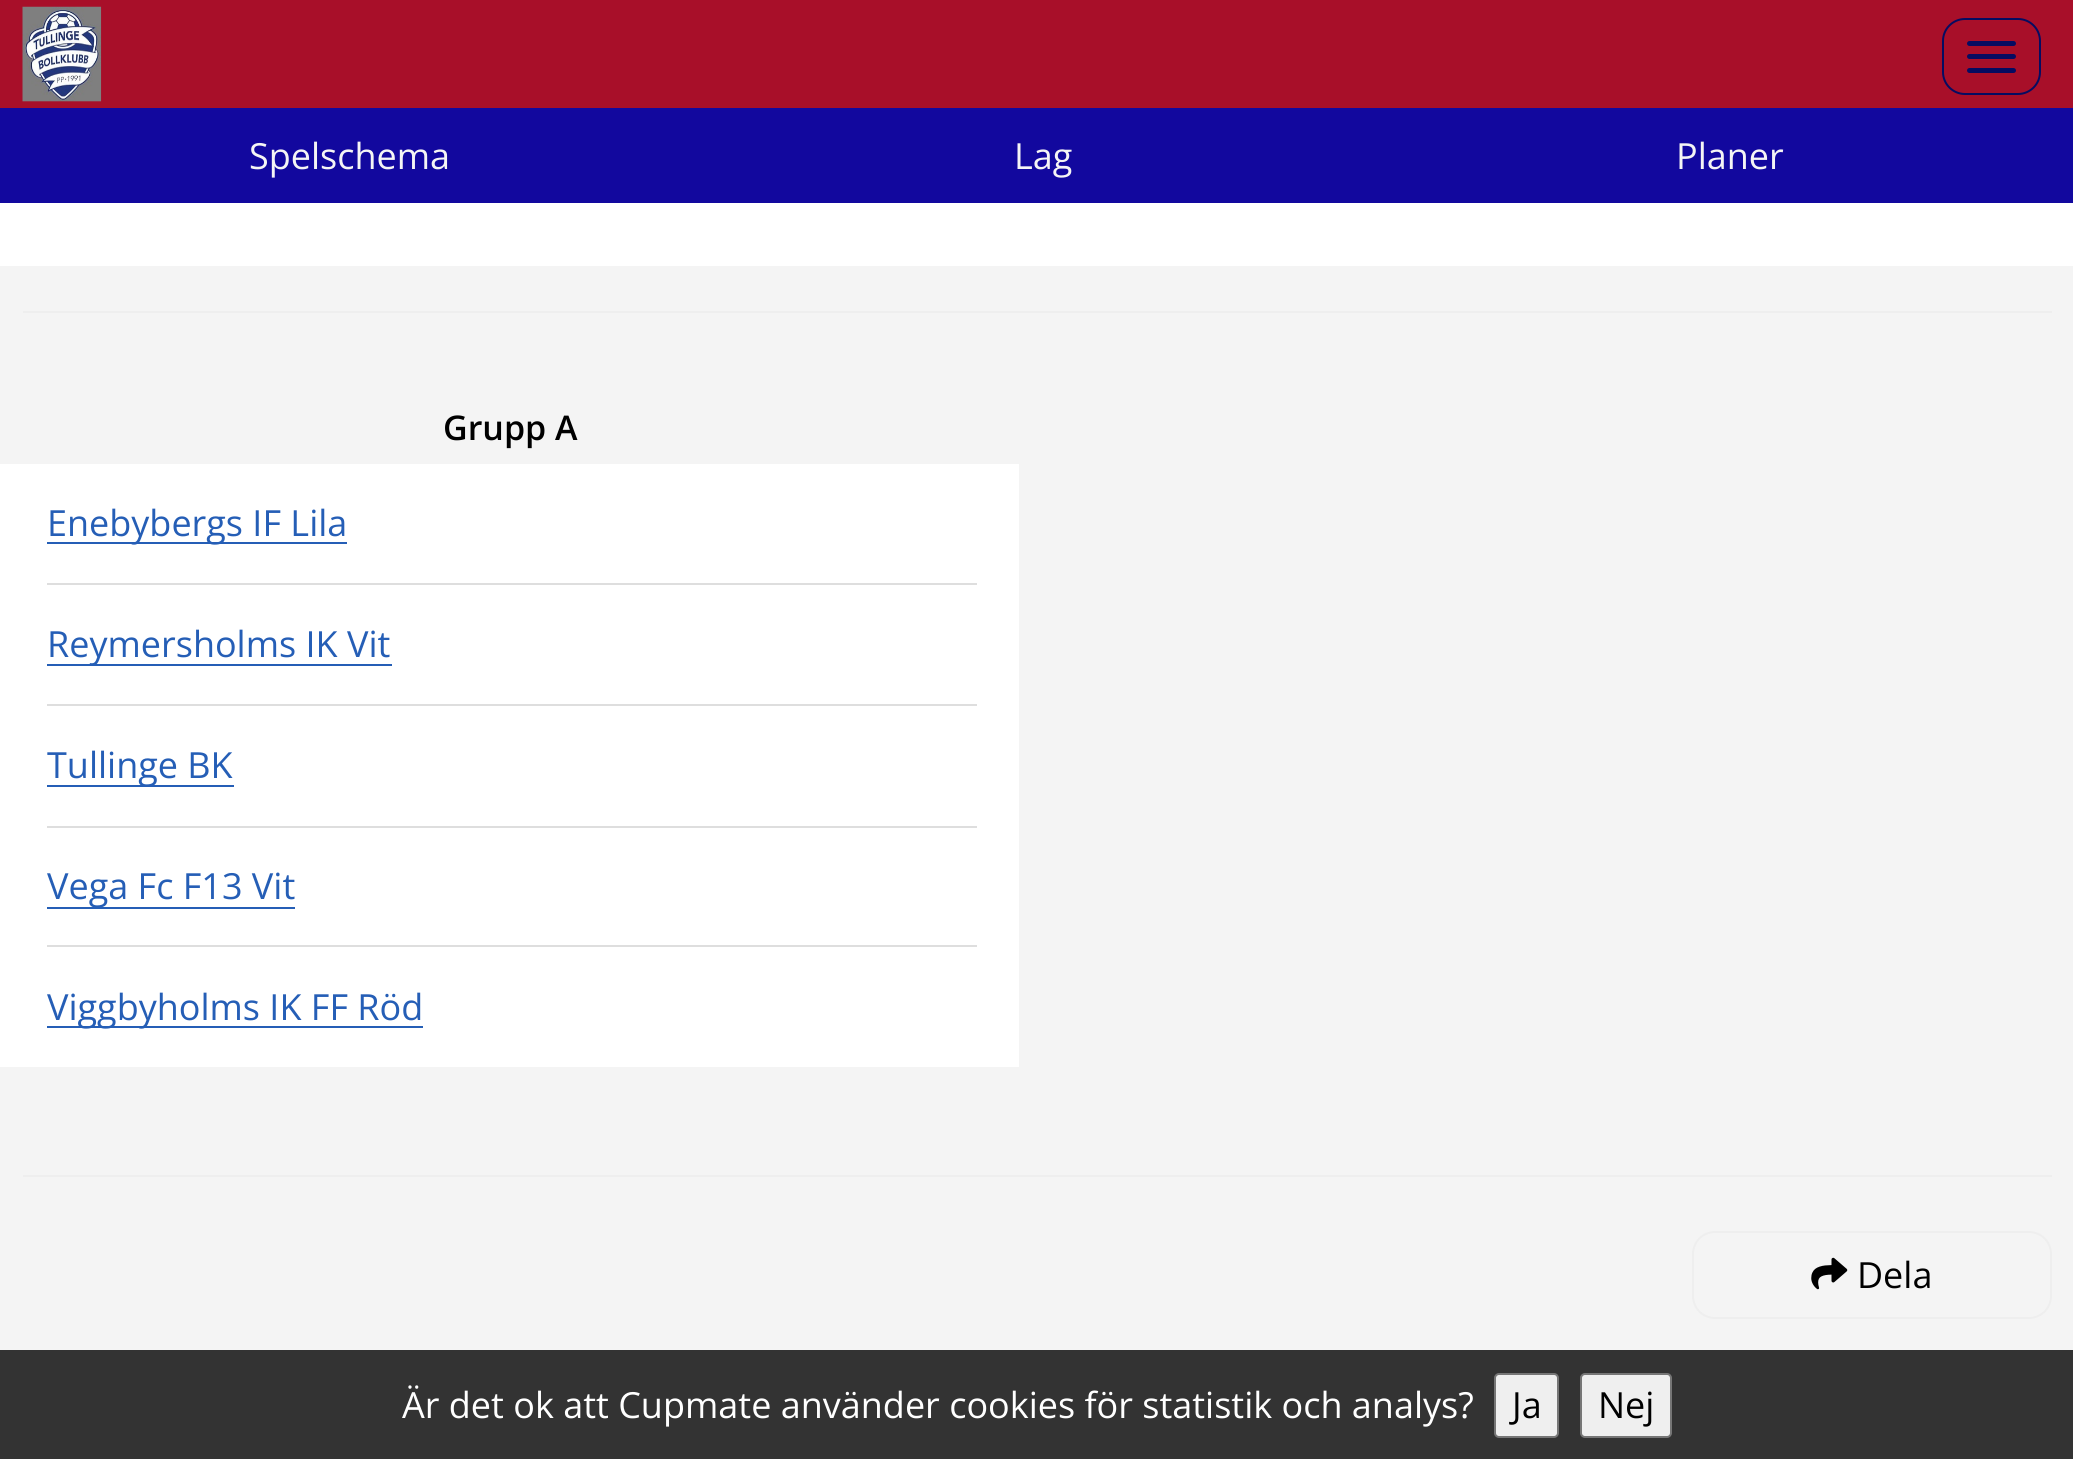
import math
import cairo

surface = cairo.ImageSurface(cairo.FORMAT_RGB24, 2073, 1459)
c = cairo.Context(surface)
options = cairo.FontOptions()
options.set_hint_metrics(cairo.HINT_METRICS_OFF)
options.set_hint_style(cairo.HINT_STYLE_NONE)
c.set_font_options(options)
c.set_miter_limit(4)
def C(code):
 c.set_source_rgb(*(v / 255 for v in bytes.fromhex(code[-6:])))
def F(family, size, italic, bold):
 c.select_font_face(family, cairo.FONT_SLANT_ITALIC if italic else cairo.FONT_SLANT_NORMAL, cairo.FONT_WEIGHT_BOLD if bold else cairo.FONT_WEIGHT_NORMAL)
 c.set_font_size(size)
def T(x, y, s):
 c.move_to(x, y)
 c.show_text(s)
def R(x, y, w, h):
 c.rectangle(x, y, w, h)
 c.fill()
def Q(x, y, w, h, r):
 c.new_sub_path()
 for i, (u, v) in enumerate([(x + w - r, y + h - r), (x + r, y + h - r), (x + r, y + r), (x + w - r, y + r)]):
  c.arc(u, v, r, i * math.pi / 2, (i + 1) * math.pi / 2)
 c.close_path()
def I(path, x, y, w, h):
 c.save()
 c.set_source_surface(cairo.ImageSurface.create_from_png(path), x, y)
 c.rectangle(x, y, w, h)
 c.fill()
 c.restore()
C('f4f4f4')
c.paint()
C('12089e')
R(0,108,2073,95)
C('a80f29')
R(0,0,2073,108)
I('1.png',22,6,80,96)
Q(1943,19,97,75,22)
C('060c61')
c.stroke()
Q(1967,41,49,5,2.5)
c.fill()
Q(1967,54,49,5,2.5)
c.fill()
Q(1967,68,49,5,2.5)
c.fill()
F('Open Sans',36,0,0)
C('f5f5f5')
T(249,169,'Spelschema')
T(1014,169,'Lag')
T(1676,169,'Planer')
C('ffffff')
R(0,203,2073,63)
C('eeeeee')
R(23,311,2029,2)
F('Open Sans SemiBold',34,0,0)
C('000000')
T(443,440,'Grupp A')
C('ffffff')
R(0,464,1019,603)
C('255eb6')
R(47,542,300,2)
F('Open Sans',36,0,0)
T(47,536,'Enebybergs IF Lila')
C('dedede')
R(47,583,930,2)
C('255eb6')
R(47,664,345,2)
T(47,657,'Reymersholms IK Vit')
C('dedede')
R(47,704,930,2)
C('255eb6')
R(47,785,187,2)
T(47,778,'Tullinge BK')
C('dedede')
R(47,826,930,2)
C('255eb6')
R(47,907,248,2)
T(47,899,'Vega Fc F13 Vit')
C('dedede')
R(47,945,930,2)
C('255eb6')
R(47,1026,376,2)
T(47,1020,'Viggbyholms IK FF Röd')
C('eeeeee')
R(23,1175,2029,2)
Q(1693,1232,358,86,22)
c.stroke()
I('2.png',1811,1257,37,33)
C('000000')
T(1857,1288,'Dela')
C('333333')
R(0,1350,2073,109)
C('ffffff')
T(402,1418,'Är det ok att Cupmate använder cookies för statistik och analys?')
C('efefef')
Q(1495,1374,63,63,4)
c.fill_preserve()
C('767676')
c.stroke()
C('000000')
T(1512,1418,'Ja')
C('efefef')
Q(1581,1374,90,63,4)
c.fill_preserve()
C('767676')
c.stroke()
C('000000')
T(1598,1418,'Nej')
surface.write_to_png('o.png')
